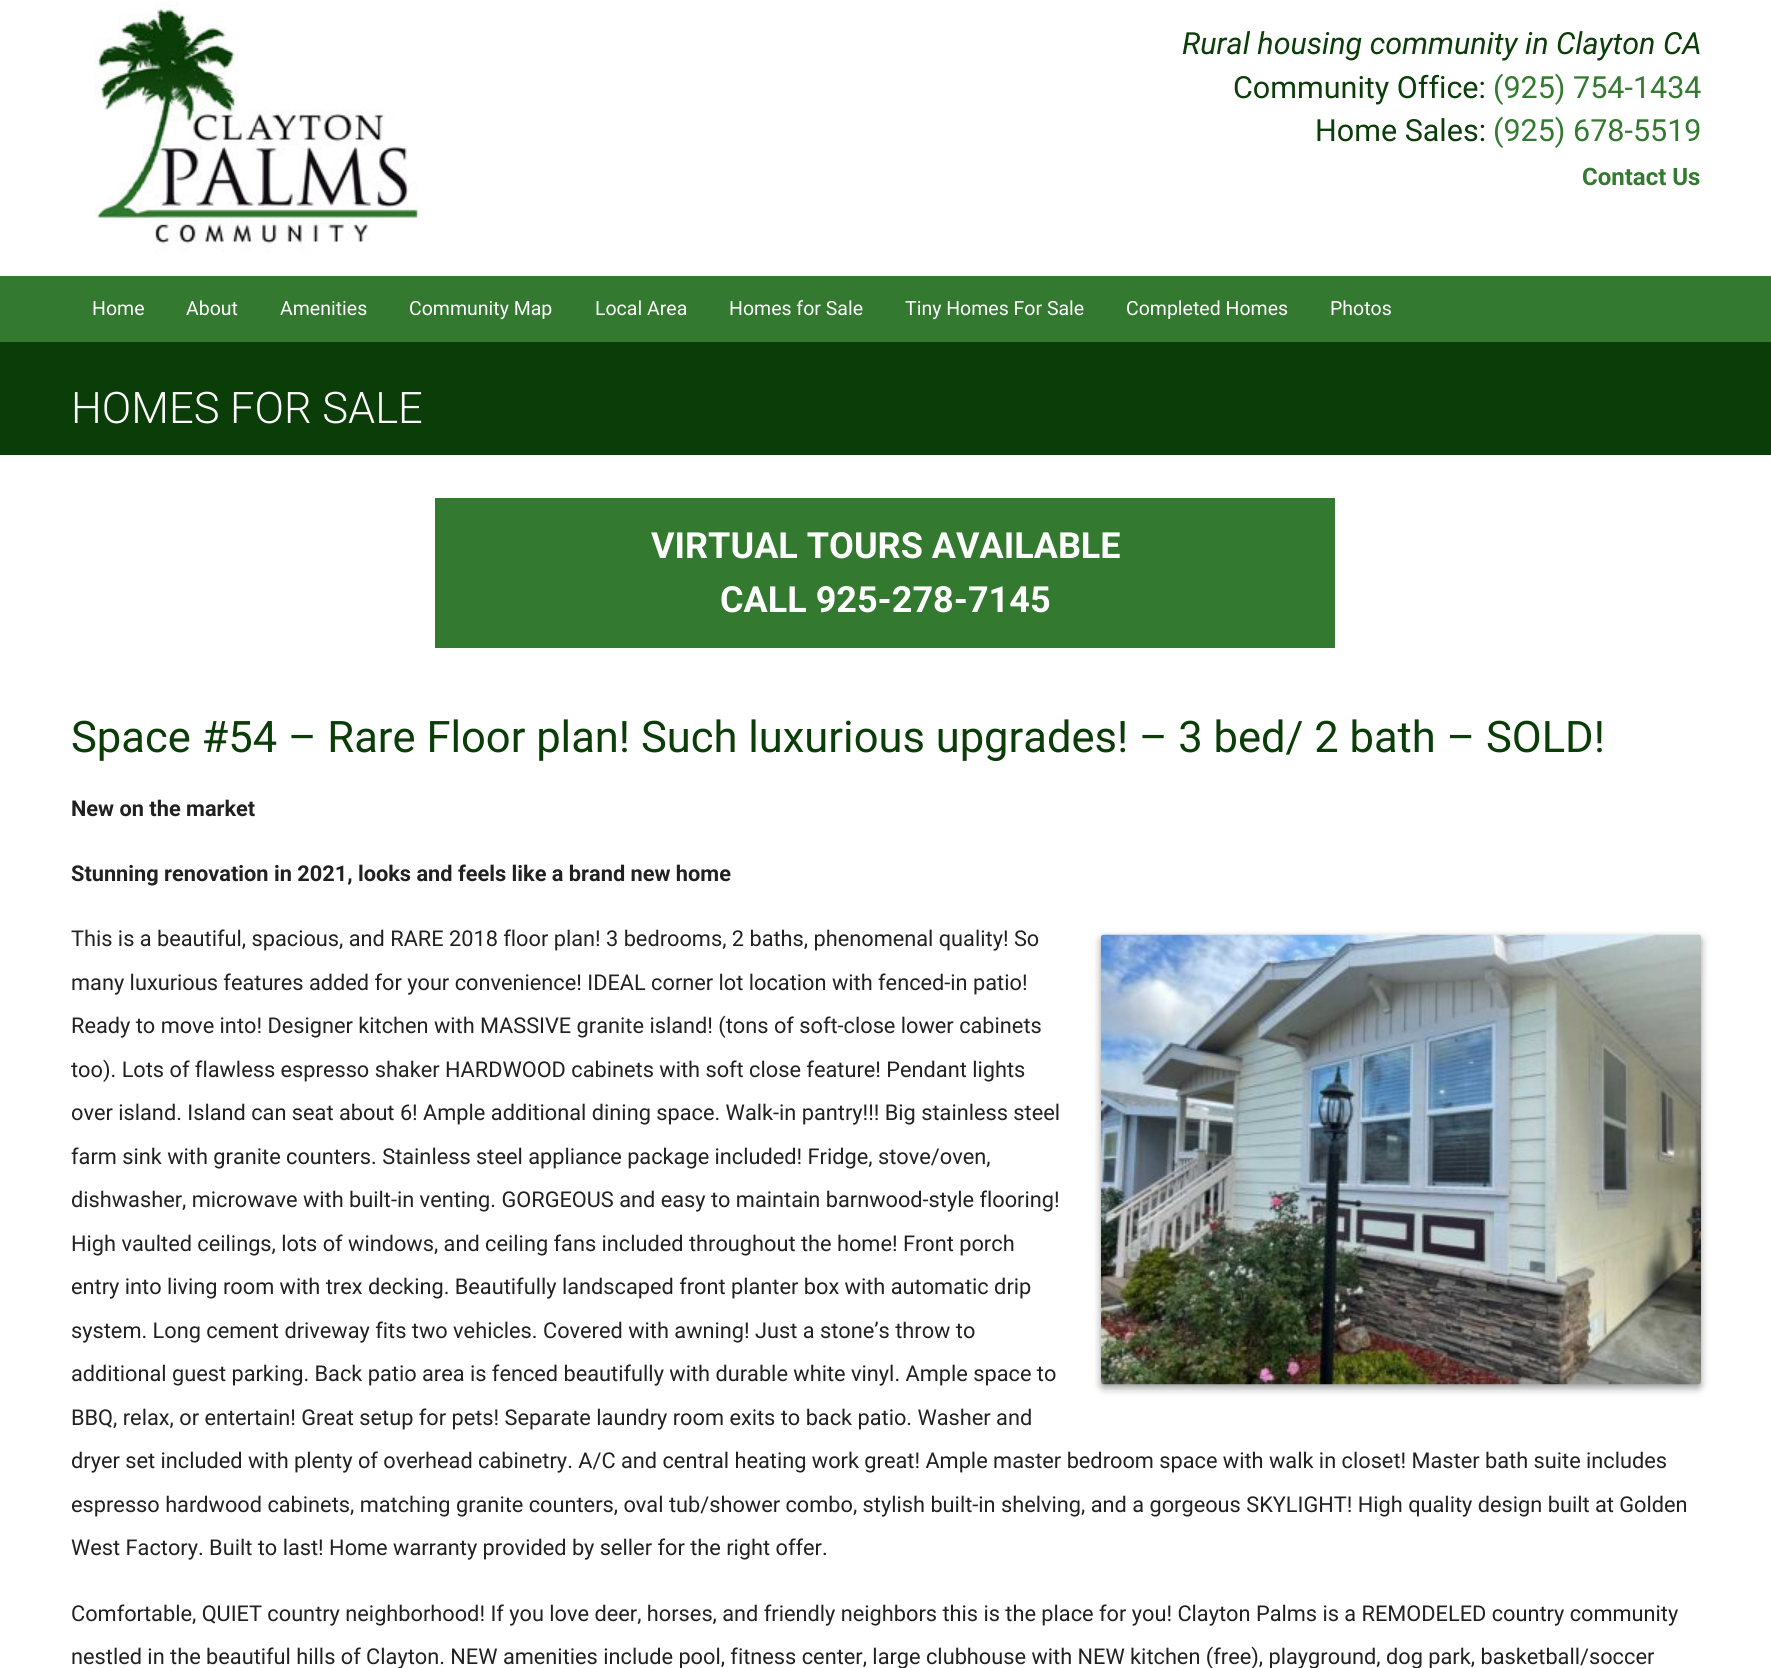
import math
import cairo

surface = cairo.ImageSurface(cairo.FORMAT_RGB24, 1771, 1668)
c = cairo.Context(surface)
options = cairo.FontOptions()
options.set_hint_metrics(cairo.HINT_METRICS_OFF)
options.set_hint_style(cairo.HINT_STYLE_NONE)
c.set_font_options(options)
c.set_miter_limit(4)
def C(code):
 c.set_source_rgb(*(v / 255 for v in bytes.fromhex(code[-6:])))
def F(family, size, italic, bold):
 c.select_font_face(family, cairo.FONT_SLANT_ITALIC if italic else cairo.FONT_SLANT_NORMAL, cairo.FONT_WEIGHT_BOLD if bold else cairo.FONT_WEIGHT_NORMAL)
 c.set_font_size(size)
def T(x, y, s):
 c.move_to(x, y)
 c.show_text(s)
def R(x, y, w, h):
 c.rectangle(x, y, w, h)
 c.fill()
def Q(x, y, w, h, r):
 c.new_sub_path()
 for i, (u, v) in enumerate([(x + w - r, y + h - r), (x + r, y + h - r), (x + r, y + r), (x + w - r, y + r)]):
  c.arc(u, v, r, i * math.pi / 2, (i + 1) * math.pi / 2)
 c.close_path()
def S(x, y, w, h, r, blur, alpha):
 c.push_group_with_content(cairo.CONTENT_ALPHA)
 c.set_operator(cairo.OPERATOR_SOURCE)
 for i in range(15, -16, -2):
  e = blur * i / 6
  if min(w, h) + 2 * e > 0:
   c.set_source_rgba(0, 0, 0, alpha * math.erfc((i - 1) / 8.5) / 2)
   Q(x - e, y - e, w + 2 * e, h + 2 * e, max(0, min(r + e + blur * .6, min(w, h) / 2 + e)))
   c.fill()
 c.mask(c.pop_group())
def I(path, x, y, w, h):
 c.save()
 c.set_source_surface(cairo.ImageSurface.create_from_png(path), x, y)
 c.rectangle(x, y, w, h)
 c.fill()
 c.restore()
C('ffffff')
c.paint()
I('1.png',94,1,325,252)
F('Roboto',30.5,1,0)
C('0b3d08')
T(1182,54,'Rural housing community in Clayton CA')
F('Roboto',30.5,0,0)
T(1233,98,'Community Office:')
C('337930')
T(1493,98,'(925) 754-1434')
C('0b3d08')
T(1315,141,'Home Sales:')
C('337930')
T(1493,141,'(925) 678-5519')
F('Roboto',24,0,1)
T(1582,185,'Contact Us')
R(0,276,1771,66)
F('Roboto',19.5,0,0)
C('ffffff')
T(92,315,'Home')
T(186,315,'About')
T(280,315,'Amenities')
T(409,315,'Community Map')
T(595,315,'Local Area')
T(729,315,'Homes for Sale')
T(905,315,'Tiny Homes For Sale')
T(1126,315,'Completed Homes')
T(1330,315,'Photos')
C('0b3d08')
R(0,342,1771,113)
F('Roboto Light',43.5,0,0)
C('ffffff')
T(71,423,'HOMES FOR SALE')
C('337930')
R(435,498,900,150)
F('Roboto',36,0,1)
C('ffffff')
T(651,558,'VIRTUAL TOURS AVAILABLE')
T(720,612,'CALL 925-278-7145')
F('Roboto',43.5,0,0)
C('0b3d08')
T(71,752,'Space #54 – Rare Floor plan! Such luxurious upgrades! – 3 bed/ 2 bath – SOLD!')
F('Roboto',21.75,0,1)
C('212121')
T(71,816,'New on the market')
T(71,881,'Stunning renovation in 2021, looks and feels like a brand new home')
F('Roboto',21.75,0,0)
T(71,946,'This is a beautiful, spacious, and RARE 2018 floor plan! 3 bedrooms, 2 baths, phenomenal quality! So')
C('000000')
S(1101,938,600,450,3,4,.4)
I('2.png',1101,934,600,451)
C('212121')
T(71,990,'many luxurious features added for your convenience! IDEAL corner lot location with fenced-in patio!')
T(71,1033,'Ready to move into! Designer kitchen with MASSIVE granite island! (tons of soft-close lower cabinets')
T(71,1077,'too). Lots of flawless espresso shaker HARDWOOD cabinets with soft close feature! Pendant lights')
T(71,1120,'over island. Island can seat about 6! Ample additional dining space. Walk-in pantry!!! Big stainless steel')
T(71,1164,'farm sink with granite counters. Stainless steel appliance package included! Fridge, stove/oven,')
T(71,1207,'dishwasher, microwave with built-in venting. GORGEOUS and easy to maintain barnwood-style flooring!')
T(71,1251,'High vaulted ceilings, lots of windows, and ceiling fans included throughout the home! Front porch')
T(71,1294,'entry into living room with trex decking. Beautifully landscaped front planter box with automatic drip')
T(71,1338,'system. Long cement driveway fits two vehicles. Covered with awning! Just a stone’s throw to')
T(71,1381,'additional guest parking. Back patio area is fenced beautifully with durable white vinyl. Ample space to')
T(71,1425,'BBQ, relax, or entertain! Great setup for pets! Separate laundry room exits to back patio. Washer and')
T(71,1468,'dryer set included with plenty of overhead cabinetry. A/C and central heating work great! Ample master bedroom space with walk in closet! Master bath suite includes')
T(71,1512,'espresso hardwood cabinets, matching granite counters, oval tub/shower combo, stylish built-in shelving, and a gorgeous SKYLIGHT! High quality design built at Golden')
T(71,1555,'West Factory. Built to last! Home warranty provided by seller for the right offer.')
T(71,1621,'Comfortable, QUIET country neighborhood! If you love deer, horses, and friendly neighbors this is the place for you! Clayton Palms is a REMODELED country community')
T(71,1664,'nestled in the beautiful hills of Clayton. NEW amenities include pool, fitness center, large clubhouse with NEW kitchen (free), playground, dog park, basketball/soccer')
surface.write_to_png('o.png')
